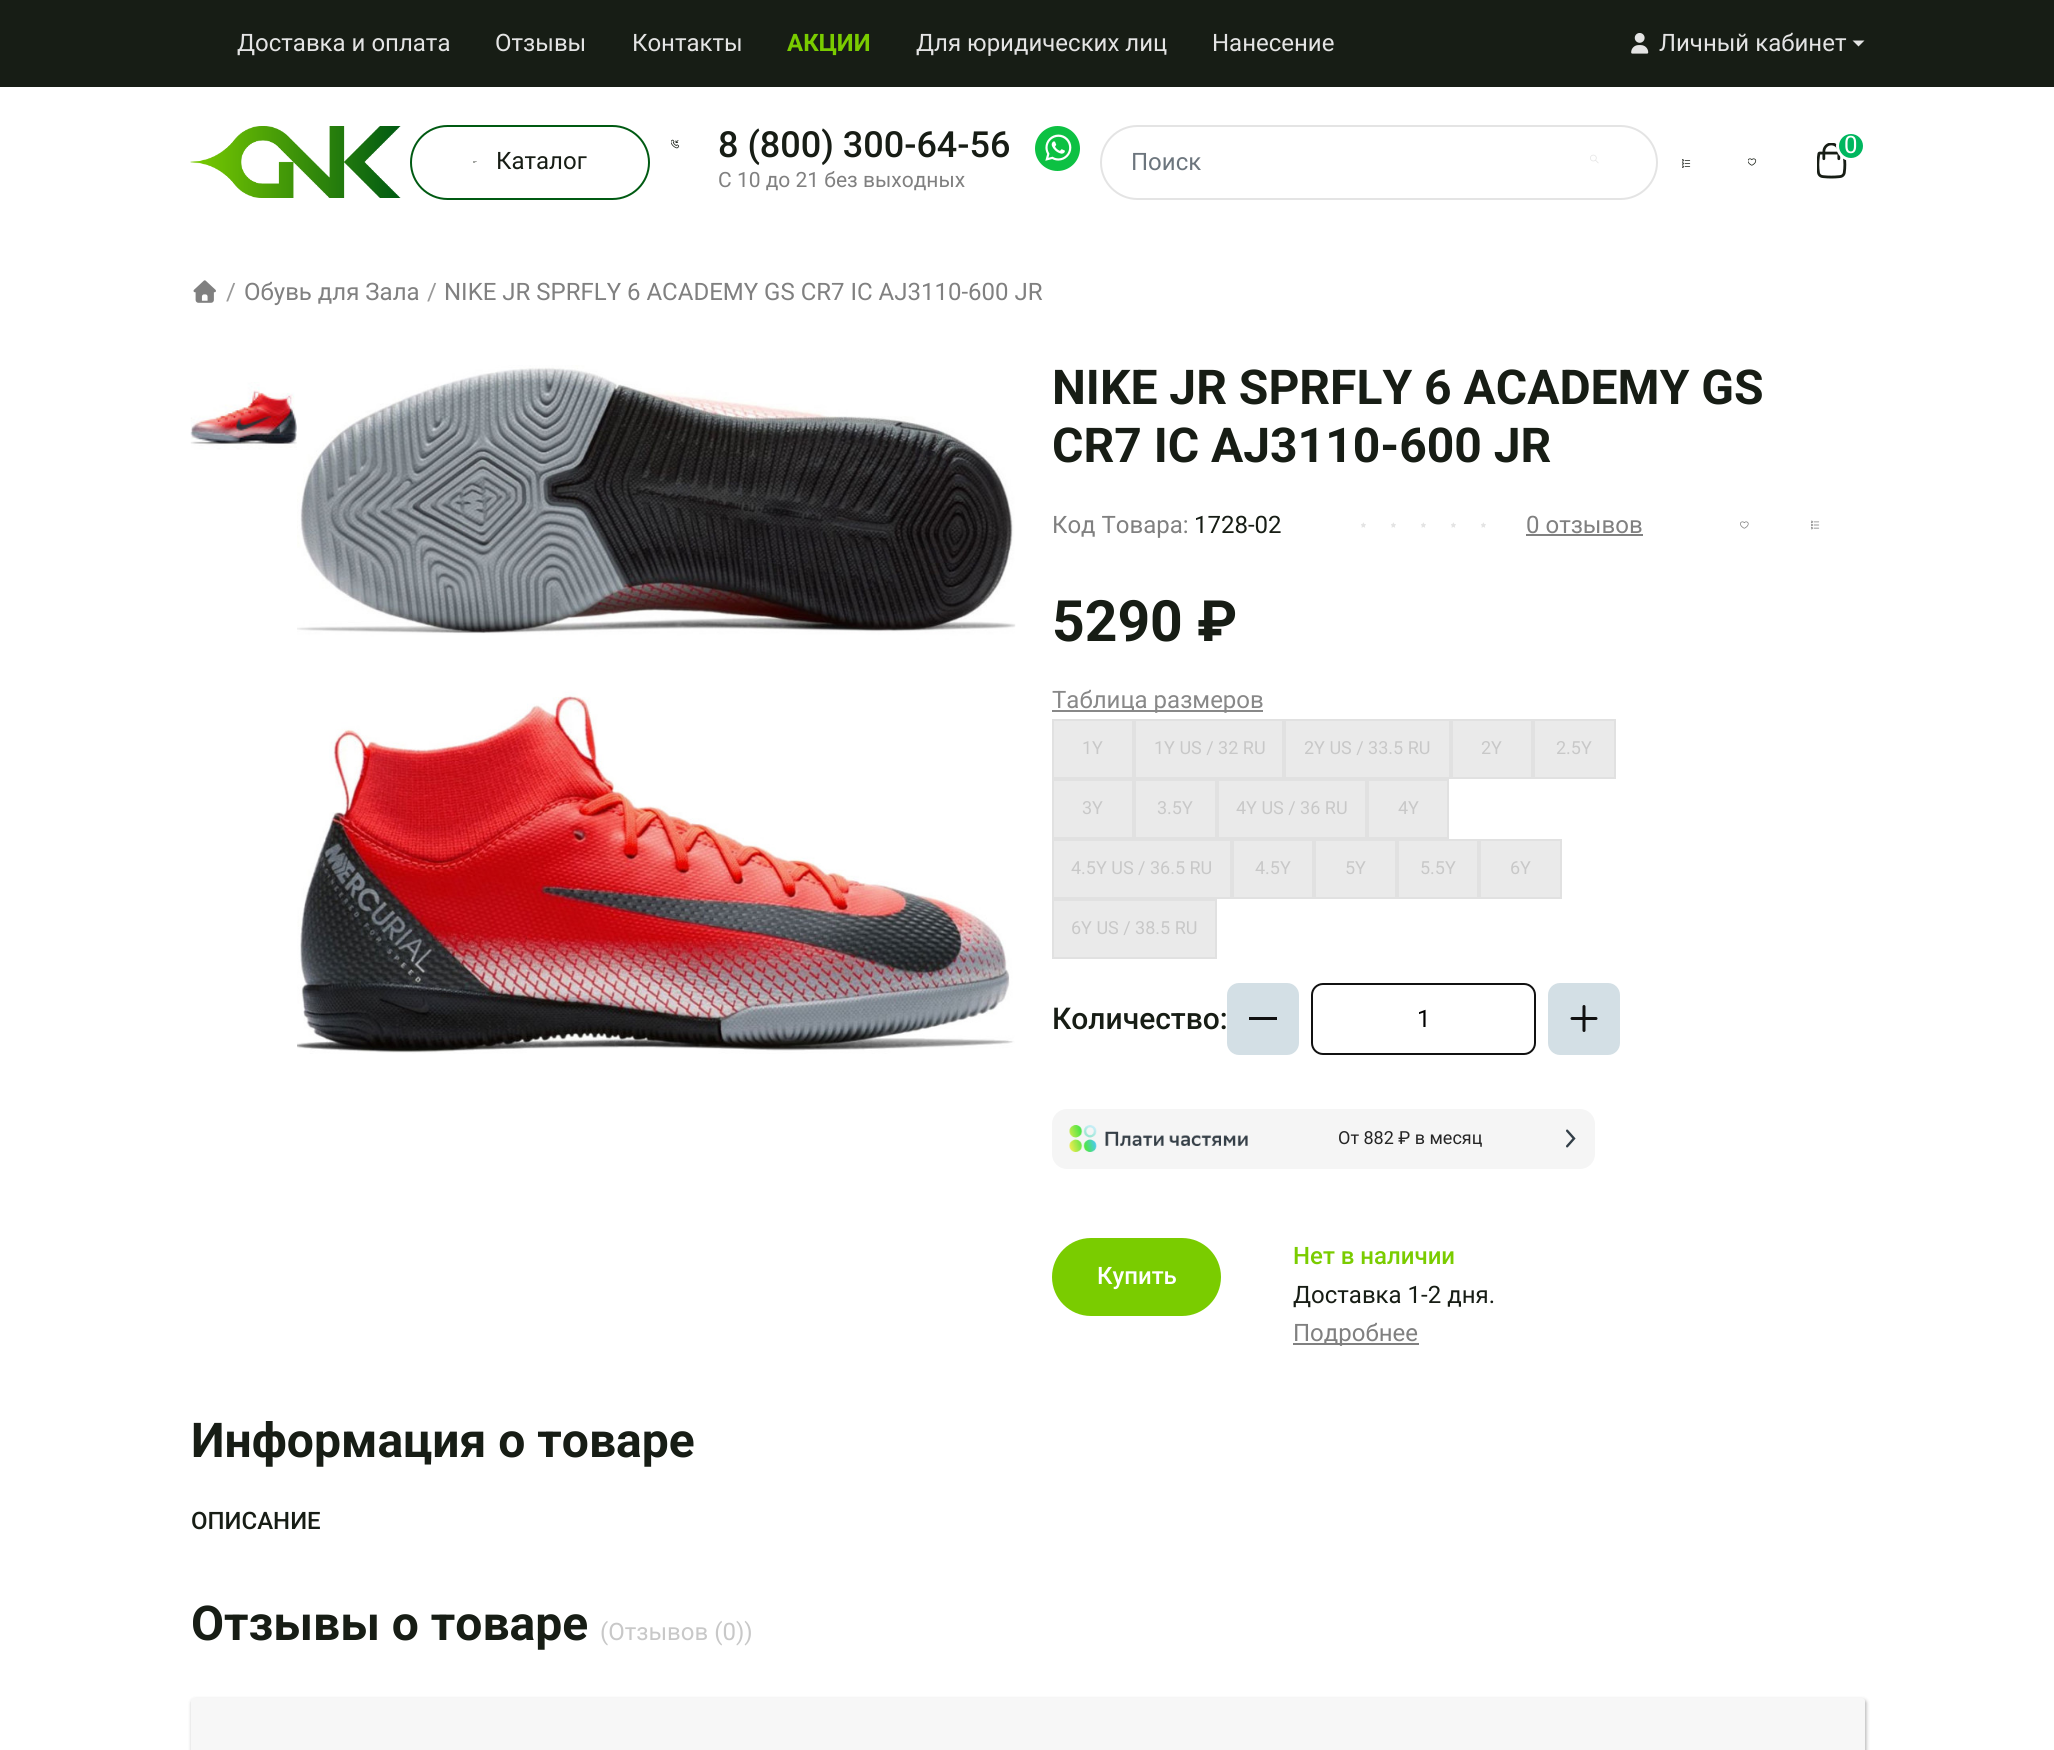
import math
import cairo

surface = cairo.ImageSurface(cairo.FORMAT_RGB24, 2054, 1750)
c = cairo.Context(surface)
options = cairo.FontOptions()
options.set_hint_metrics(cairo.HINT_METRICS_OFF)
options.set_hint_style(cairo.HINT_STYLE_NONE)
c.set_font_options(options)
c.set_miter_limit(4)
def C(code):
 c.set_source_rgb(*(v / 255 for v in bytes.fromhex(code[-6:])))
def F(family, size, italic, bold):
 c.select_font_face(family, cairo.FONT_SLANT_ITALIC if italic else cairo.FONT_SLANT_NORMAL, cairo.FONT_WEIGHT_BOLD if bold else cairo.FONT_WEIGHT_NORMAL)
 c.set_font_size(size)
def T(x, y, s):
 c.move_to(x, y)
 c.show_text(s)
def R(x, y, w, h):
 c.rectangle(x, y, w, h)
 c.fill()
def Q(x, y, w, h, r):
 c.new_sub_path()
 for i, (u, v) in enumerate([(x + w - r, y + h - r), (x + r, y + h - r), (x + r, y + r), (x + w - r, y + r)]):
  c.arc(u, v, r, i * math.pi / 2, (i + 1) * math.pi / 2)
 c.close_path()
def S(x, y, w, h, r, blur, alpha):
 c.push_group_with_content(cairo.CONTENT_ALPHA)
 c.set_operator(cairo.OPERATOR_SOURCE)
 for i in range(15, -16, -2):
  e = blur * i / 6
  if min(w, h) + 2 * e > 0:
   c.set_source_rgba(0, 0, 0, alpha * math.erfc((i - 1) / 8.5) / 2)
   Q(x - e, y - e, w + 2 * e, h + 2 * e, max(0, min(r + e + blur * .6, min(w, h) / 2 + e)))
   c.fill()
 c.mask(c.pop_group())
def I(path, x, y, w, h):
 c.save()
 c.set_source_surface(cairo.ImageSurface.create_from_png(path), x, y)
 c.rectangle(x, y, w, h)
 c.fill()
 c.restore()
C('ffffff')
c.paint()
C('171d15')
R(0,0,2054,87)
F('Roboto',24,0,0)
C('e4e4e4')
T(237,51,'Доставка и оплата')
T(495,51,'Отзывы')
T(632,51,'Контакты')
F('Roboto',24,0,1)
C('7acc00')
T(787,51,'АКЦИИ')
F('Roboto',24,0,0)
C('e4e4e4')
T(916,51,'Для юридических лиц')
T(1212,51,'Нанесение')
I('1.png',1631,33,18,21)
T(1659,51,'Личный кабинет')
c.new_path()
c.move_to(1852.5,40.5)
c.line_to(1864.5,40.5)
c.line_to(1858.5,46.5)
c.close_path()
c.fill()
I('2.png',190,126,211,72)
I('3.png',671,139,9,10)
F('Roboto Medium',36,0,0)
C('171d15')
T(718,157,'8 (800) 300-64-56')
F('Roboto',21,0,0)
C('808080')
T(718,187,'С 10 до 21 без выходных')
I('4.png',1035,126,45,45)
I('5.png',1817,143,30,36)
C('00b75f')
c.arc(1851,146,13.5,0,2 * math.pi)
c.fill_preserve()
C('ffffff')
c.set_line_width(3)
c.stroke()
F('Roboto',24,0,0)
T(1844,153,'0')
I('6.png',1682,159,9,9)
I('7.png',1748,158,9,8)
Q(411,126,238,73,36.5)
C('005a12')
c.set_line_width(2)
c.stroke()
I('8.png',473,161,4,2)
C('171d15')
T(496,169,'Каталог')
Q(1101,126,556,73,36.5)
C('e4e4e4')
c.stroke()
C('6c757d')
T(1131,170,'Поиск')
I('9.png',1590,154,9,10)
I('10.png',193,280,23,23)
C('999999')
T(226,300,'/')
C('808080')
T(244,300,'Обувь для Зала')
C('999999')
T(427,300,'/')
C('808080')
T(444,300,'NIKE JR SPRFLY 6 ACADEMY GS CR7 IC AJ3110-600 JR')
I('11.png',190,382,107,68)
I('12.png',297,365,719,689)
F('Roboto',48,0,1)
C('171d15')
T(1052,404,'NIKE JR SPRFLY 6 ACADEMY GS')
T(1052,462,'CR7 IC AJ3110-600 JR')
F('Roboto',24,0,0)
C('808080')
T(1052,533,'Код Товара:')
C('171d15')
T(1194,533,'1728-02')
I('13.png',1361,522,5,6)
I('13.png',1391,522,5,6)
I('13.png',1421,522,5,6)
I('13.png',1451,522,5,6)
I('13.png',1481,522,5,6)
C('808080')
T(1526,533,'0 отзывов')
R(1526,534,117,2)
I('14.png',1740,521,9,8)
I('15.png',1811,520,9,10)
F('Roboto',57,0,1)
C('171d15')
T(1052,641,'5290 ₽')
C('888888')
R(1052,710,211,2)
F('Roboto',24,0,0)
T(1052,708,'Таблица размеров')
C('eaeaea')
c.rectangle(1053,720,80,58)
c.fill_preserve()
C('e1e1e1')
c.stroke()
F('Roboto',18,0,0)
C('c8c8c8')
T(1082,754,'1Y')
C('eaeaea')
c.rectangle(1135,720,148,58)
c.fill_preserve()
C('e1e1e1')
c.stroke()
C('c8c8c8')
T(1154,754,'1Y US / 32 RU')
C('eaeaea')
c.rectangle(1285,720,165,58)
c.fill_preserve()
C('e1e1e1')
c.stroke()
C('c8c8c8')
T(1304,754,'2Y US / 33.5 RU')
C('eaeaea')
c.rectangle(1452,720,80,58)
c.fill_preserve()
C('e1e1e1')
c.stroke()
C('c8c8c8')
T(1481,754,'2Y')
C('eaeaea')
c.rectangle(1534,720,81,58)
c.fill_preserve()
C('e1e1e1')
c.stroke()
C('c8c8c8')
T(1556,754,'2.5Y')
C('eaeaea')
c.rectangle(1053,780,80,58)
c.fill_preserve()
C('e1e1e1')
c.stroke()
C('c8c8c8')
T(1082,814,'3Y')
C('eaeaea')
c.rectangle(1135,780,81,58)
c.fill_preserve()
C('e1e1e1')
c.stroke()
C('c8c8c8')
T(1157,814,'3.5Y')
C('eaeaea')
c.rectangle(1218,780,148,58)
c.fill_preserve()
C('e1e1e1')
c.stroke()
C('c8c8c8')
T(1236,814,'4Y US / 36 RU')
C('eaeaea')
c.rectangle(1368,780,80,58)
c.fill_preserve()
C('e1e1e1')
c.stroke()
C('c8c8c8')
T(1398,814,'4Y')
C('eaeaea')
c.rectangle(1053,840,178,58)
c.fill_preserve()
C('e1e1e1')
c.stroke()
C('c8c8c8')
T(1071,874,'4.5Y US / 36.5 RU')
C('eaeaea')
c.rectangle(1233,840,80,58)
c.fill_preserve()
C('e1e1e1')
c.stroke()
C('c8c8c8')
T(1255,874,'4.5Y')
C('eaeaea')
c.rectangle(1315,840,81,58)
c.fill_preserve()
C('e1e1e1')
c.stroke()
C('c8c8c8')
T(1345,874,'5Y')
C('eaeaea')
c.rectangle(1398,840,80,58)
c.fill_preserve()
C('e1e1e1')
c.stroke()
C('c8c8c8')
T(1420,874,'5.5Y')
C('eaeaea')
c.rectangle(1480,840,81,58)
c.fill_preserve()
C('e1e1e1')
c.stroke()
C('c8c8c8')
T(1510,874,'6Y')
C('eaeaea')
c.rectangle(1053,900,163,58)
c.fill_preserve()
C('e1e1e1')
c.stroke()
C('c8c8c8')
T(1071,934,'6Y US / 38.5 RU')
F('Roboto Medium',30,0,0)
C('171d15')
T(1052,1029,'Количество:')
C('d3dfe5')
Q(1227,983,72,72,12)
c.fill()
C('111111')
R(1249,1017,28,3)
Q(1312,984,223,70,11)
c.stroke()
F('Roboto',24,0,0)
C('000000')
T(1417,1027,'1')
C('d3dfe5')
Q(1548,983,72,72,12)
c.fill()
I('16.png',1570,1005,28,27)
C('f5f5f5')
Q(1052,1109,543,60,15)
c.fill()
I('17.png',1069,1125,179,27)
F('Roboto',18,0,0)
C('262626')
T(1338,1144,'От 882 ₽ в месяц')
I('18.png',1566,1129,10,19)
C('7acc00')
Q(1052,1238,169,78,39)
c.fill()
F('Roboto Medium',24,0,0)
C('ffffff')
T(1097,1284,'Купить')
C('7acc00')
T(1293,1264,'Нет в наличии')
F('Roboto',24,0,0)
C('171d15')
T(1293,1303,'Доставка 1-2 дня.')
C('808080')
R(1293,1343,126,2)
T(1293,1341,'Подробнее')
F('Roboto',48,0,1)
C('171d15')
T(191,1457,'Информация о товаре')
F('Roboto Medium',24,0,0)
T(191,1529,'ОПИСАНИЕ')
F('Roboto',48,0,1)
T(191,1640,'Отзывы о товаре')
F('Roboto',24,0,0)
C('c8c8c8')
T(600,1640,'(Отзывов (0))')
C('000000')
S(192,1700,1674,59,3,2,.34)
C('f7f7f7')
Q(191,1698,1674,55,3)
c.fill()
surface.write_to_png('o.png')
